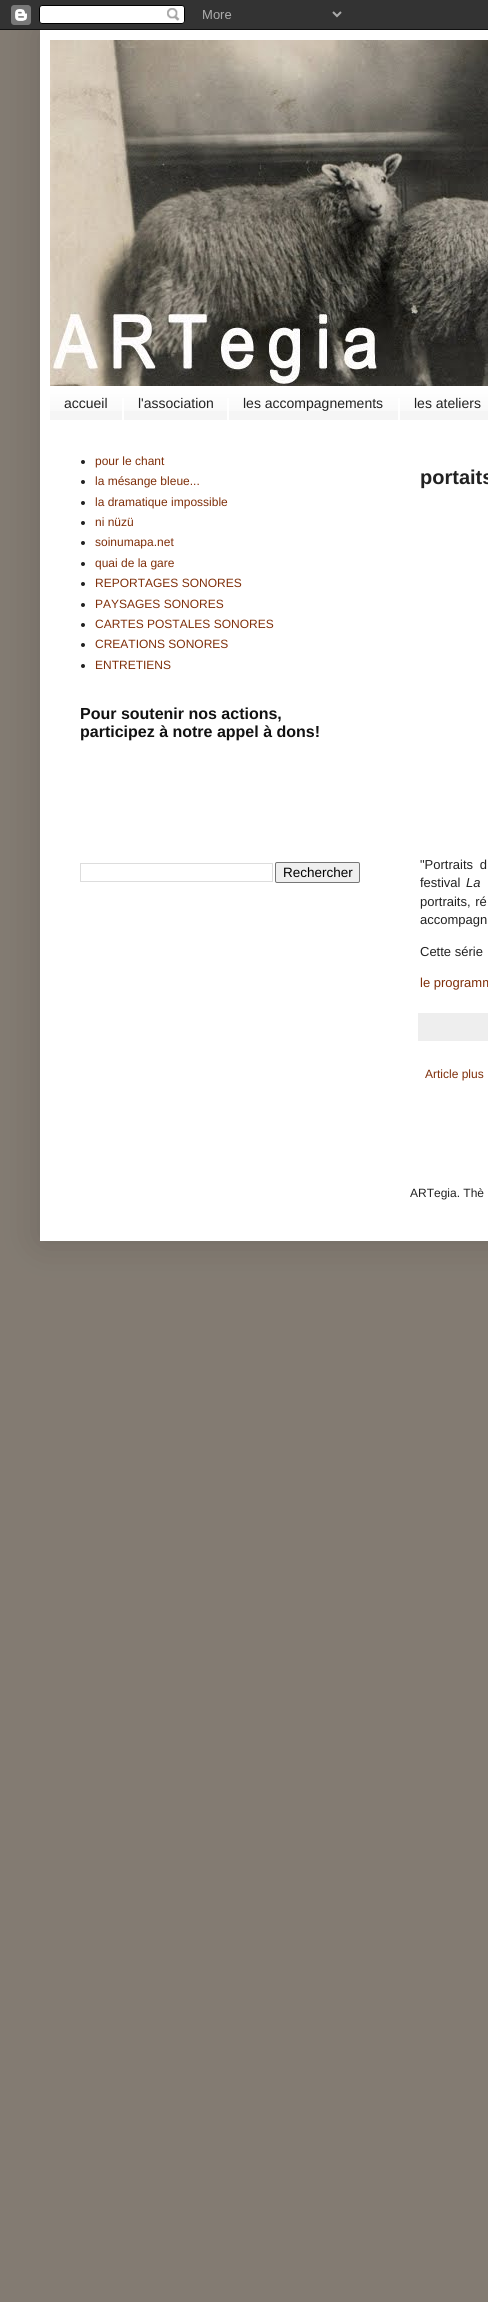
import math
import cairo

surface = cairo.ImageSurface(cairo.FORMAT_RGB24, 488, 2302)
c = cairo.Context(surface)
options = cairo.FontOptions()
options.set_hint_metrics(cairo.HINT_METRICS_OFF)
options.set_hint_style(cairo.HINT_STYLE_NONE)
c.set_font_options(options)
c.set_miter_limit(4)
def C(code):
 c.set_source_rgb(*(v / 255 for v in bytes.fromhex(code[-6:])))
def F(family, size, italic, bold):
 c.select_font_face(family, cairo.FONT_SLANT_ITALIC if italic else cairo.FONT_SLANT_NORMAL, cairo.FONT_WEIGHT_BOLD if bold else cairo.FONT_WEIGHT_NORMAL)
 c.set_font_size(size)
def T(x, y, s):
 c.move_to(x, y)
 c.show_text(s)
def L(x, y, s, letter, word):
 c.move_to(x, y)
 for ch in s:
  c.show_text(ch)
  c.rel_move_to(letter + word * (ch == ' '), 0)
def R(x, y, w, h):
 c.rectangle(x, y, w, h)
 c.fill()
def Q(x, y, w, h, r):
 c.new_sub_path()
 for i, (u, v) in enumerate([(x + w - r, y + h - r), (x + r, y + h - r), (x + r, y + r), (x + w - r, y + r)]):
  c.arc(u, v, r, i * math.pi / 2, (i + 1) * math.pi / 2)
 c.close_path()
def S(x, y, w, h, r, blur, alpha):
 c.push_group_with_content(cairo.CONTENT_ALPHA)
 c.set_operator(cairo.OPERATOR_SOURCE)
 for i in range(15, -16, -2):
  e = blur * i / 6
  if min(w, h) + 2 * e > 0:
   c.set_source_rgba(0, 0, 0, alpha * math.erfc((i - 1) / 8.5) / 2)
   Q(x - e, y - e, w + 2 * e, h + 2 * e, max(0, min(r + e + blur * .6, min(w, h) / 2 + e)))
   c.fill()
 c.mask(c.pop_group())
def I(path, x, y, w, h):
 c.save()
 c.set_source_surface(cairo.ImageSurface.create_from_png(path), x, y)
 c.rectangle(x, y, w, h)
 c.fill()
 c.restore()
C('837b72')
c.paint()
C('000000')
S(40,30,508,1211,0,20,.15)
I('1.png',0,0,488,30)
C('ffffff')
R(40,30,448,1211)
I('2.png',50,40,438,346)
C('f5f5f5')
R(50,388,438,32)
I('3.png',50,387,438,24)
C('ffffff')
R(122,398,2,22)
F('Liberation Sans',14,0,0)
C('222222')
T(64,408,'accueil')
C('ffffff')
R(227,398,2,22)
C('222222')
T(138,408,'l\'association')
C('ffffff')
R(398,398,2,22)
C('222222')
T(243,408,'les accompagnements')
T(414,408,'les ateliers')
c.new_path()
c.arc(83,462,2,0,2 * math.pi)
c.fill()
F('Liberation Sans',12,0,0)
C('7f2f0a')
T(95,465,'pour le chant')
C('222222')
c.new_path()
c.arc(83,482,2,0,2 * math.pi)
c.fill()
C('7f2f0a')
T(95,485,'la mésange bleue...')
C('222222')
c.new_path()
c.arc(83,503,2,0,2 * math.pi)
c.fill()
C('7f2f0a')
T(95,506,'la dramatique impossible')
C('222222')
c.new_path()
c.arc(83,523,2,0,2 * math.pi)
c.fill()
C('7f2f0a')
T(95,526,'ni nüzü')
C('222222')
c.new_path()
c.arc(83,543,2,0,2 * math.pi)
c.fill()
C('7f2f0a')
T(95,546,'soinumapa.net')
C('222222')
c.new_path()
c.arc(83,564,2,0,2 * math.pi)
c.fill()
C('7f2f0a')
T(95,567,'quai de la gare')
C('222222')
c.new_path()
c.arc(83,584,2,0,2 * math.pi)
c.fill()
C('7f2f0a')
T(95,587,'REPORTAGES SONORES')
C('222222')
c.new_path()
c.arc(83,605,2,0,2 * math.pi)
c.fill()
C('7f2f0a')
T(95,608,'PAYSAGES SONORES')
C('222222')
c.new_path()
c.arc(83,625,2,0,2 * math.pi)
c.fill()
C('7f2f0a')
T(95,628,'CARTES POSTALES SONORES')
C('222222')
c.new_path()
c.arc(83,645,2,0,2 * math.pi)
c.fill()
C('7f2f0a')
T(95,648,'CREATIONS SONORES')
C('222222')
c.new_path()
c.arc(83,666,2,0,2 * math.pi)
c.fill()
C('7f2f0a')
T(95,669,'ENTRETIENS')
F('Liberation Sans',16,0,1)
C('111111')
T(80,719,'Pour soutenir nos actions,')
T(80,737,'participez à notre appel à dons!')
c.rectangle(80.5,863.5,192,18)
C('dddddd')
c.set_line_width(1)
c.stroke()
C('efefef')
Q(275.5,862.5,84,20,1.5)
c.fill_preserve()
C('767676')
c.stroke()
F('Liberation Sans',13.5,0,0)
C('000000')
T(283,877,'Rechercher')
F('Liberation Sans',20,0,1)
C('222222')
T(420,484,'portaits')
F('Liberation Sans',13,0,0)
L(420,869,'"Portraits d',0,3)
T(420,887,'festival')
F('Liberation Sans',13,1,0)
L(466,887,'La',0,1)
F('Liberation Sans',13,0,0)
L(420,906,'portraits, ré',0,1)
T(420,924,'accompagn')
T(420,956,'Cette série')
C('7f2f0a')
T(420,987,'le programm')
C('eeeeee')
R(418,1013,70,28)
F('Liberation Sans',12,0,0)
C('7f2f0a')
T(425,1078,'Article plus')
C('222222')
T(410,1197,'ARTegia. Thè')
surface.write_to_png('o.png')
